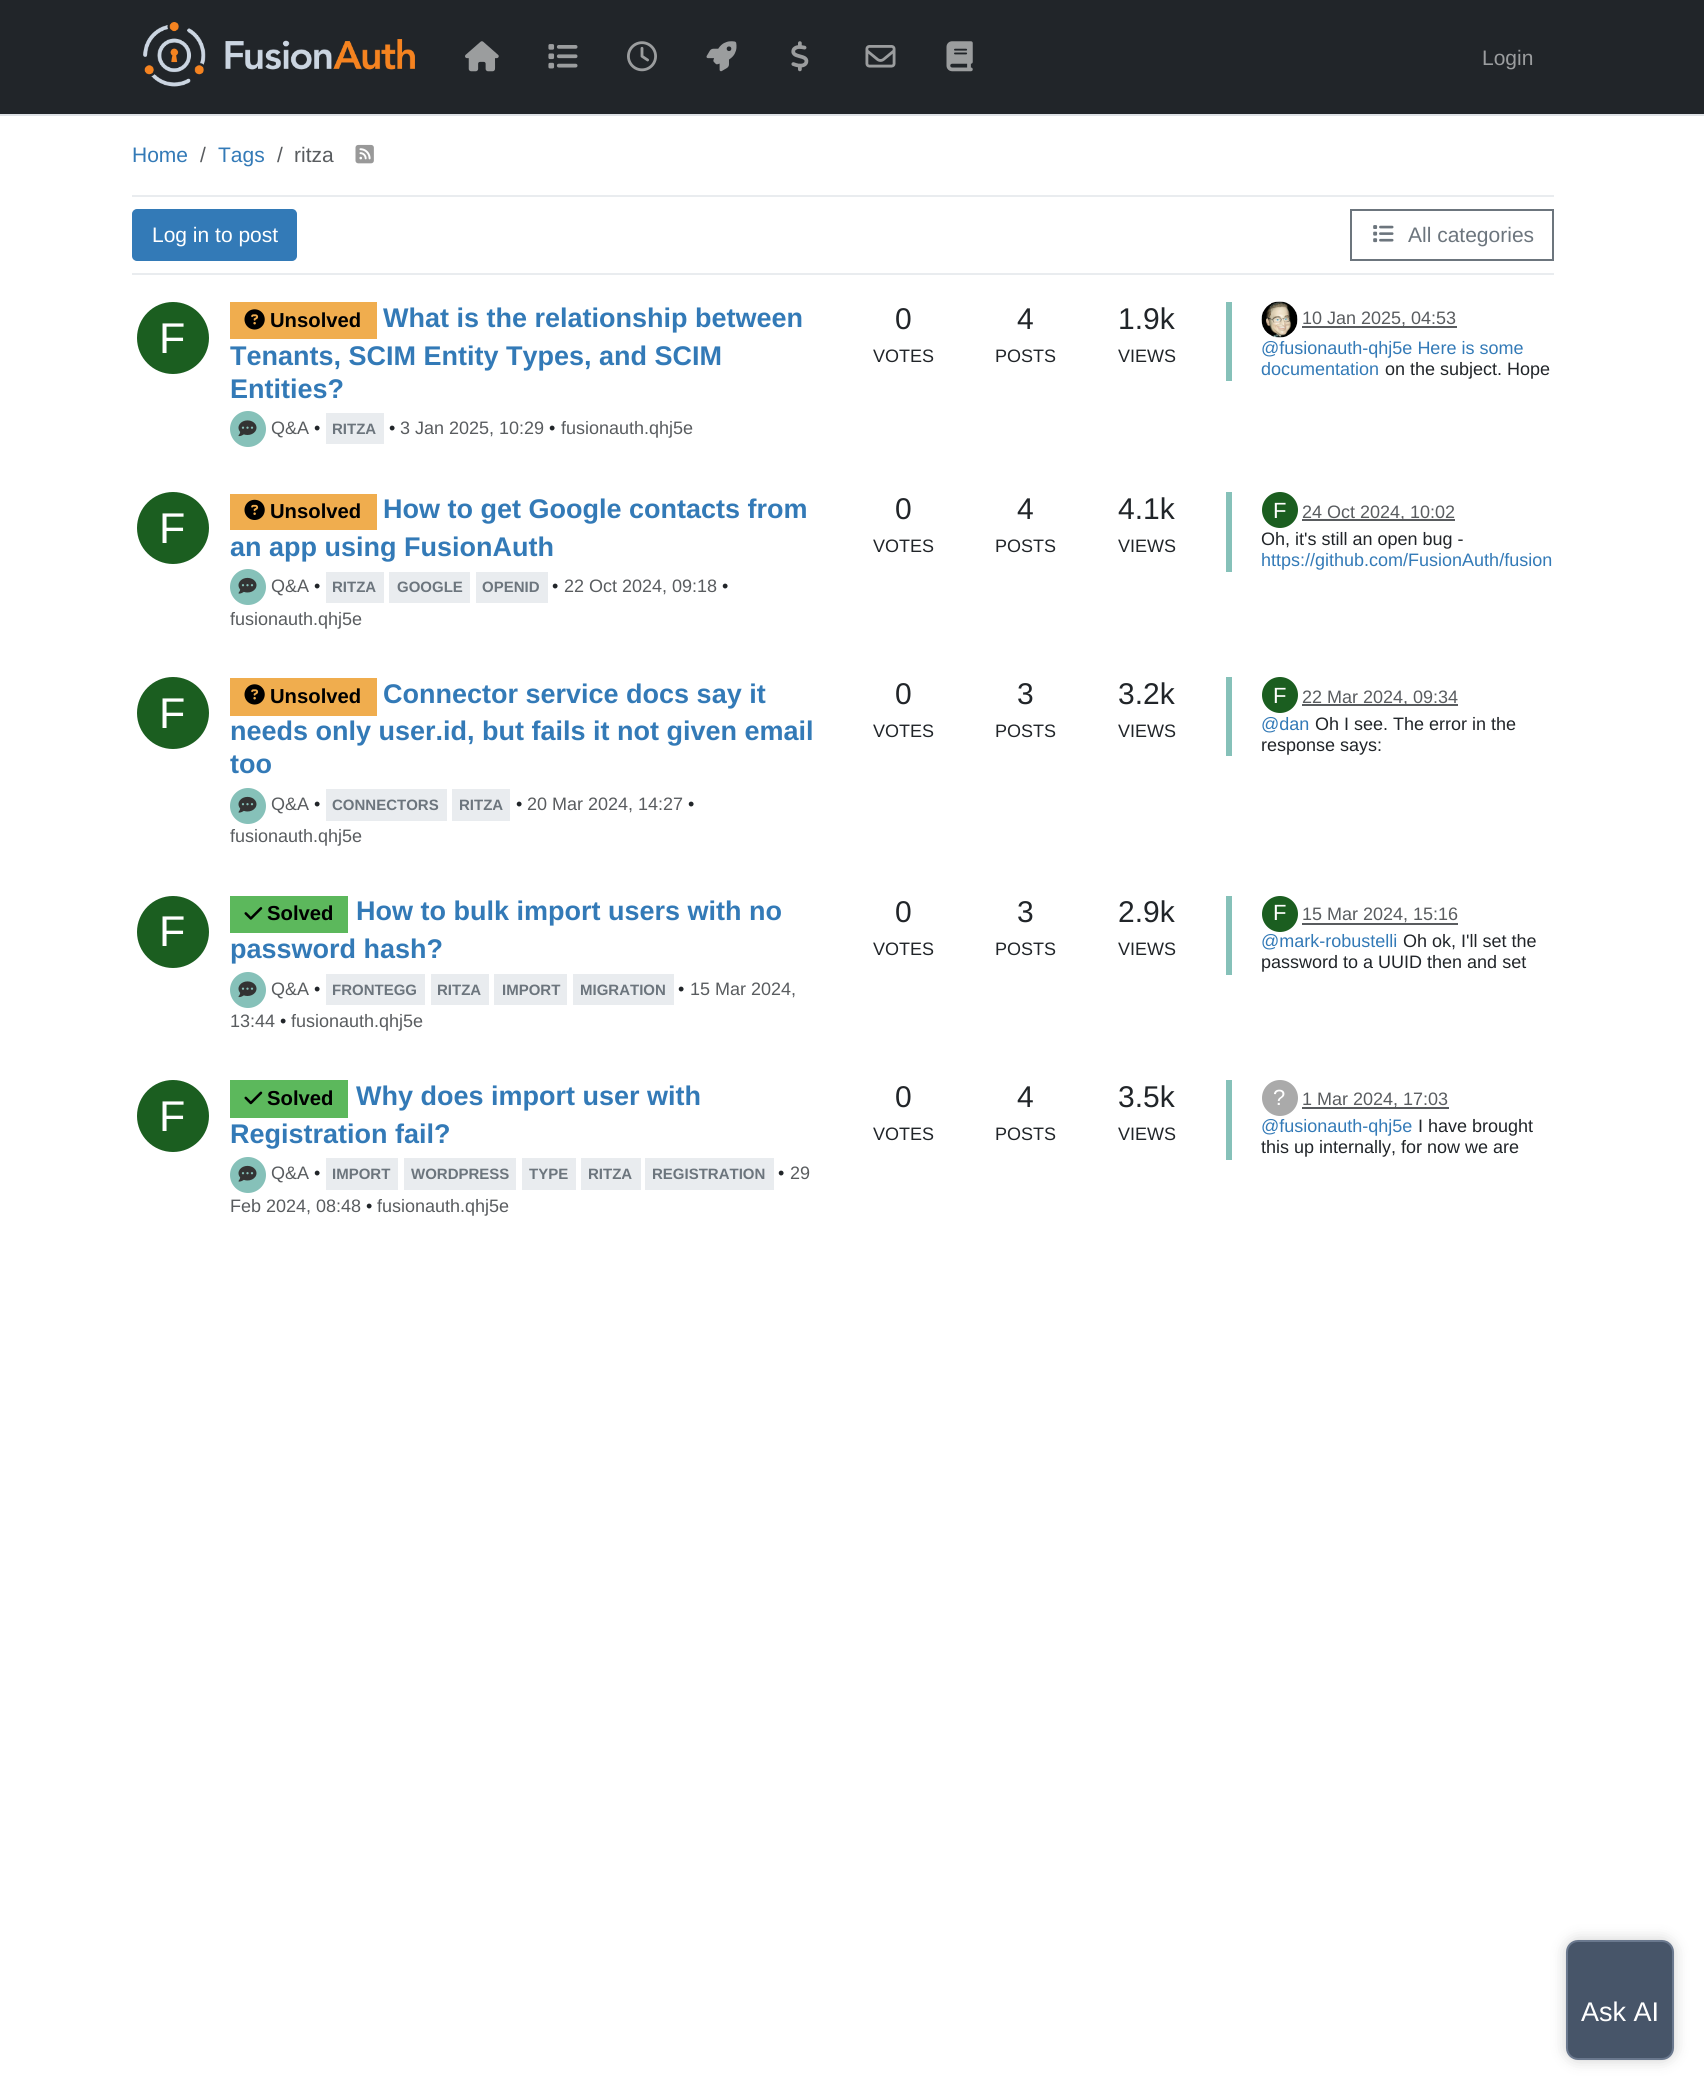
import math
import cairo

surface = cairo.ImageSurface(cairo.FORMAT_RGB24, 1704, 2089)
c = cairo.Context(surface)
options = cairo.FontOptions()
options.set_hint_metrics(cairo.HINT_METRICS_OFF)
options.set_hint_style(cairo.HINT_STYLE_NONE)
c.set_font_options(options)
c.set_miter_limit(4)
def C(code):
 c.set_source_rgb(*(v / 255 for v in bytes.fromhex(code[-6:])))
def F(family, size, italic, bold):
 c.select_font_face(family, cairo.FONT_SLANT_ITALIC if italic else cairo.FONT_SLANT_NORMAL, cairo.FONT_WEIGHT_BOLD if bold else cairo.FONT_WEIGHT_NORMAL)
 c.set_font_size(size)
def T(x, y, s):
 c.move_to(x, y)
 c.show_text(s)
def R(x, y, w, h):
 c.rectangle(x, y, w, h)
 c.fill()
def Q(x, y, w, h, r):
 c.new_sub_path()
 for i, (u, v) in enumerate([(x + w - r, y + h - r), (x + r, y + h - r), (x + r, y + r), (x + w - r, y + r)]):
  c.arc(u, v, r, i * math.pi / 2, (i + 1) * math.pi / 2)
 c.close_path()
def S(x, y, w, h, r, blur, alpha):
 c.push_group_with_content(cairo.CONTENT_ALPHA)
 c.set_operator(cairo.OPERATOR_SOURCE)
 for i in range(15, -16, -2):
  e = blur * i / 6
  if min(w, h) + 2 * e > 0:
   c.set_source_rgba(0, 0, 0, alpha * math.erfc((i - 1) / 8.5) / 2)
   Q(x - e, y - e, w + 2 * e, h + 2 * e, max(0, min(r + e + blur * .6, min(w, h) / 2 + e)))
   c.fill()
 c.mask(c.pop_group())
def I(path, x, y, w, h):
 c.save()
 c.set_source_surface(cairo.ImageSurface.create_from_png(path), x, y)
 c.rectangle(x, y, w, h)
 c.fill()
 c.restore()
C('ffffff')
c.paint()
C('212529')
R(0,0,1704,114)
C('dee2e6')
R(0,114,1704,2)
I('1.png',143,22,272,65)
I('2.png',465,41,34,31)
I('3.png',548,44,30,25)
I('4.png',627,41,30,31)
I('5.png',706,41,31,31)
I('6.png',791,41,18,31)
I('7.png',865,45,31,23)
I('8.png',946,41,27,31)
F('Liberation Sans',21,0,0)
C('9b9d9f')
T(1482,65,'Login')
C('337ab7')
T(132,162,'Home')
C('595c5f')
T(200,162,'/')
C('337ab7')
T(218,162,'Tags')
C('595c5f')
T(277,162,'/')
T(294,162,'ritza')
I('9.png',355,144,19,20)
C('e9ecef')
R(132,195,1422,2)
R(132,273,1422,2)
C('337ab7')
Q(133,210,163,50,4)
c.fill_preserve()
c.stroke()
C('ffffff')
T(152,242,'Log in to post')
c.rectangle(1351,210,202,50)
C('6c757d')
c.stroke()
I('10.png',1373,225,21,18)
T(1408,242,'All categories')
C('1b5e20')
c.new_path()
c.arc(173,338,36,0,2 * math.pi)
c.fill()
F('Liberation Sans',43,0,0)
C('ffffff')
T(159,353,'F')
C('f0ad4e')
R(230,302,147,37)
I('11.png',244,309,21,21)
F('Liberation Sans',20.25,0,1)
C('000000')
T(270,327,'Unsolved')
F('Liberation Sans',27,0,1)
C('337ab7')
T(383,327,'What is the relationship between')
c.save()
c.rectangle(230,302,591,103)
c.clip()
T(230,365,'Tenants, SCIM Entity Types, and SCIM')
c.restore()
T(230,398,'Entities?')
C('86c1b9')
c.new_path()
c.arc(248,429,18,0,2 * math.pi)
c.fill()
I('12.png',238,420,19,17)
F('Liberation Sans',18,0,0)
C('595c5f')
T(271,434,'Q&A')
C('212529')
T(314,434,'•')
C('e9ecef')
R(326,413,58,31)
F('Liberation Sans',15,0,1)
C('6c757d')
T(332,434,'RITZA')
F('Liberation Sans',18,0,0)
C('212529')
T(389,434,'•')
C('595c5f')
T(400,434,'3 Jan 2025, 10:29')
C('212529')
T(549,434,'•')
C('595c5f')
T(561,434,'fusionauth.qhj5e')
F('Liberation Sans',30,0,0)
C('212529')
T(895,329,'0')
F('Liberation Sans',18,0,0)
T(873,362,'VOTES')
F('Liberation Sans',30,0,0)
T(1017,329,'4')
F('Liberation Sans',18,0,0)
T(995,362,'POSTS')
F('Liberation Sans',30,0,0)
T(1118,329,'1.9k')
F('Liberation Sans',18,0,0)
T(1118,362,'VIEWS')
C('86c1b9')
R(1226,302,6,79)
I('13.png',1261,301,37,37)
C('595c5f')
R(1302,326,155,2)
T(1302,324,'10 Jan 2025, 04:53')
C('337ab7')
T(1261,354,'@fusionauth-qhj5e Here is some')
T(1261,375,'documentation')
C('212529')
T(1385,375,'on the subject. Hope')
C('1b5e20')
c.new_path()
c.arc(173,528,36,0,2 * math.pi)
c.fill()
F('Liberation Sans',43,0,0)
C('ffffff')
T(159,543,'F')
C('f0ad4e')
R(230,494,147,36)
I('14.png',244,499,21,21)
F('Liberation Sans',20.25,0,1)
C('000000')
T(270,518,'Unsolved')
F('Liberation Sans',27,0,1)
C('337ab7')
T(383,518,'How to get Google contacts from')
T(230,556,'an app using FusionAuth')
C('86c1b9')
c.new_path()
c.arc(248,587,18,0,2 * math.pi)
c.fill()
I('15.png',238,577,19,17)
F('Liberation Sans',18,0,0)
C('595c5f')
T(271,592,'Q&A')
C('212529')
T(314,592,'•')
C('e9ecef')
R(326,572,58,31)
F('Liberation Sans',15,0,1)
C('6c757d')
T(332,592,'RITZA')
C('e9ecef')
R(389,572,81,31)
C('6c757d')
T(397,592,'GOOGLE')
C('e9ecef')
R(476,572,72,31)
C('6c757d')
T(482,592,'OPENID')
F('Liberation Sans',18,0,0)
C('212529')
T(552,592,'•')
C('595c5f')
T(564,592,'22 Oct 2024, 09:18')
C('212529')
T(722,592,'•')
C('595c5f')
T(230,625,'fusionauth.qhj5e')
F('Liberation Sans',30,0,0)
C('212529')
T(895,519,'0')
F('Liberation Sans',18,0,0)
T(873,552,'VOTES')
F('Liberation Sans',30,0,0)
T(1017,519,'4')
F('Liberation Sans',18,0,0)
T(995,552,'POSTS')
F('Liberation Sans',30,0,0)
T(1118,519,'4.1k')
F('Liberation Sans',18,0,0)
T(1118,552,'VIEWS')
C('86c1b9')
R(1226,492,6,80)
C('1b5e20')
c.new_path()
c.arc(1280,510,18,0,2 * math.pi)
c.fill()
F('Liberation Sans',22,0,0)
C('ffffff')
T(1273,518,'F')
C('595c5f')
R(1302,519,153,2)
F('Liberation Sans',18,0,0)
T(1302,518,'24 Oct 2024, 10:02')
C('212529')
T(1261,545,'Oh, it\'s still an open bug -')
C('337ab7')
T(1261,566,'https://github.com/FusionAuth/fusion')
C('1b5e20')
c.new_path()
c.arc(173,713,36,0,2 * math.pi)
c.fill()
F('Liberation Sans',43,0,0)
C('ffffff')
T(159,728,'F')
C('f0ad4e')
R(230,678,147,38)
I('11.png',244,684,21,21)
F('Liberation Sans',20.25,0,1)
C('000000')
T(270,703,'Unsolved')
F('Liberation Sans',27,0,1)
C('337ab7')
T(383,703,'Connector service docs say it')
T(230,740,'needs only user.id, but fails it not given email')
T(230,773,'too')
C('86c1b9')
c.new_path()
c.arc(248,806,18,0,2 * math.pi)
c.fill()
I('15.png',238,796,19,17)
F('Liberation Sans',18,0,0)
C('595c5f')
T(271,810,'Q&A')
C('212529')
T(314,810,'•')
C('e9ecef')
R(326,789,121,32)
F('Liberation Sans',15,0,1)
C('6c757d')
T(332,810,'CONNECTORS')
C('e9ecef')
R(452,789,58,32)
C('6c757d')
T(459,810,'RITZA')
F('Liberation Sans',18,0,0)
C('212529')
T(516,810,'•')
C('595c5f')
T(527,810,'20 Mar 2024, 14:27')
C('212529')
T(688,810,'•')
C('595c5f')
T(230,842,'fusionauth.qhj5e')
F('Liberation Sans',30,0,0)
C('212529')
T(895,704,'0')
F('Liberation Sans',18,0,0)
T(873,737,'VOTES')
F('Liberation Sans',30,0,0)
T(1017,704,'3')
F('Liberation Sans',18,0,0)
T(995,737,'POSTS')
F('Liberation Sans',30,0,0)
T(1118,704,'3.2k')
F('Liberation Sans',18,0,0)
T(1118,737,'VIEWS')
C('86c1b9')
R(1226,677,6,79)
C('1b5e20')
c.new_path()
c.arc(1280,695,18,0,2 * math.pi)
c.fill()
F('Liberation Sans',22,0,0)
C('ffffff')
T(1273,703,'F')
C('595c5f')
R(1302,704,156,2)
F('Liberation Sans',18,0,0)
T(1302,703,'22 Mar 2024, 09:34')
C('337ab7')
T(1261,730,'@dan')
C('212529')
T(1315,730,'Oh I see. The error in the')
T(1261,751,'response says:')
C('1b5e20')
c.new_path()
c.arc(173,932,36,0,2 * math.pi)
c.fill()
F('Liberation Sans',43,0,0)
C('ffffff')
T(159,946,'F')
C('5cb85c')
R(230,896,118,37)
I('16.png',244,907,19,13)
F('Liberation Sans',20.25,0,1)
C('000000')
T(267,920,'Solved')
F('Liberation Sans',27,0,1)
C('337ab7')
T(356,920,'How to bulk import users with no')
T(230,958,'password hash?')
C('86c1b9')
c.new_path()
c.arc(248,990,18,0,2 * math.pi)
c.fill()
I('12.png',238,981,19,17)
F('Liberation Sans',18,0,0)
C('595c5f')
T(271,995,'Q&A')
C('212529')
T(314,995,'•')
C('e9ecef')
R(326,974,99,31)
F('Liberation Sans',15,0,1)
C('6c757d')
T(332,995,'FRONTEGG')
C('e9ecef')
R(431,974,58,31)
C('6c757d')
T(437,995,'RITZA')
C('e9ecef')
R(494,974,73,31)
C('6c757d')
T(502,995,'IMPORT')
C('e9ecef')
R(573,974,101,31)
C('6c757d')
T(580,995,'MIGRATION')
F('Liberation Sans',18,0,0)
C('212529')
T(678,995,'•')
C('595c5f')
T(690,995,'15 Mar 2024,')
T(230,1027,'13:44')
C('212529')
T(280,1027,'•')
C('595c5f')
T(291,1027,'fusionauth.qhj5e')
F('Liberation Sans',30,0,0)
C('212529')
T(895,922,'0')
F('Liberation Sans',18,0,0)
T(873,955,'VOTES')
F('Liberation Sans',30,0,0)
T(1017,922,'3')
F('Liberation Sans',18,0,0)
T(995,955,'POSTS')
F('Liberation Sans',30,0,0)
T(1118,922,'2.9k')
F('Liberation Sans',18,0,0)
T(1118,955,'VIEWS')
C('86c1b9')
R(1226,896,6,79)
C('1b5e20')
c.new_path()
c.arc(1280,914,18,0,2 * math.pi)
c.fill()
F('Liberation Sans',22,0,0)
C('ffffff')
T(1273,920,'F')
F('Liberation Sans',18,0,0)
C('595c5f')
T(1302,920,'15 Mar 2024, 15:16')
R(1302,923,156,2)
C('337ab7')
T(1261,947,'@mark-robustelli')
C('212529')
T(1403,947,'Oh ok, I\'ll set the')
T(1261,968,'password to a UUID then and set')
C('1b5e20')
c.new_path()
c.arc(173,1116,36,0,2 * math.pi)
c.fill()
F('Liberation Sans',43,0,0)
C('ffffff')
T(159,1131,'F')
C('5cb85c')
R(230,1080,118,38)
I('17.png',244,1091,19,14)
F('Liberation Sans',20.25,0,1)
C('000000')
T(267,1105,'Solved')
F('Liberation Sans',27,0,1)
C('337ab7')
T(356,1105,'Why does import user with')
T(230,1143,'Registration fail?')
C('86c1b9')
c.new_path()
c.arc(248,1175,18,0,2 * math.pi)
c.fill()
I('15.png',238,1165,19,17)
F('Liberation Sans',18,0,0)
C('595c5f')
T(271,1179,'Q&A')
C('212529')
T(314,1179,'•')
C('e9ecef')
R(326,1158,72,32)
F('Liberation Sans',15,0,1)
C('6c757d')
T(332,1179,'IMPORT')
C('e9ecef')
R(404,1158,112,32)
C('6c757d')
T(411,1179,'WORDPRESS')
C('e9ecef')
R(522,1158,54,32)
C('6c757d')
T(529,1179,'TYPE')
C('e9ecef')
R(581,1158,60,32)
C('6c757d')
T(588,1179,'RITZA')
C('e9ecef')
R(645,1158,129,32)
C('6c757d')
T(652,1179,'REGISTRATION')
F('Liberation Sans',18,0,0)
C('212529')
T(778,1179,'•')
C('595c5f')
T(790,1179,'29')
T(230,1212,'Feb 2024, 08:48')
C('212529')
T(366,1212,'•')
C('595c5f')
T(377,1212,'fusionauth.qhj5e')
F('Liberation Sans',30,0,0)
C('212529')
T(895,1107,'0')
F('Liberation Sans',18,0,0)
T(873,1140,'VOTES')
F('Liberation Sans',30,0,0)
T(1017,1107,'4')
F('Liberation Sans',18,0,0)
T(995,1140,'POSTS')
F('Liberation Sans',30,0,0)
T(1118,1107,'3.5k')
F('Liberation Sans',18,0,0)
T(1118,1140,'VIEWS')
C('86c1b9')
R(1226,1080,6,80)
C('aaaaaa')
c.new_path()
c.arc(1280,1098,18,0,2 * math.pi)
c.fill()
F('Liberation Sans',22,0,0)
C('ffffff')
T(1273,1105,'?')
C('595c5f')
R(1302,1107,147,2)
F('Liberation Sans',18,0,0)
T(1302,1105,'1 Mar 2024, 17:03')
C('337ab7')
T(1261,1132,'@fusionauth-qhj5e')
C('212529')
T(1418,1132,'I have brought')
T(1261,1153,'this up internally, for now we are')
C('000000')
S(1566,1940,108,120,12,7.5,.2)
C('475569')
Q(1567,1941,106,118,11)
c.fill_preserve()
C('6a788e')
c.stroke()
F('Liberation Sans',27,0,0)
C('ffffff')
T(1581,2021,'Ask AI')
surface.write_to_png('o.png')
